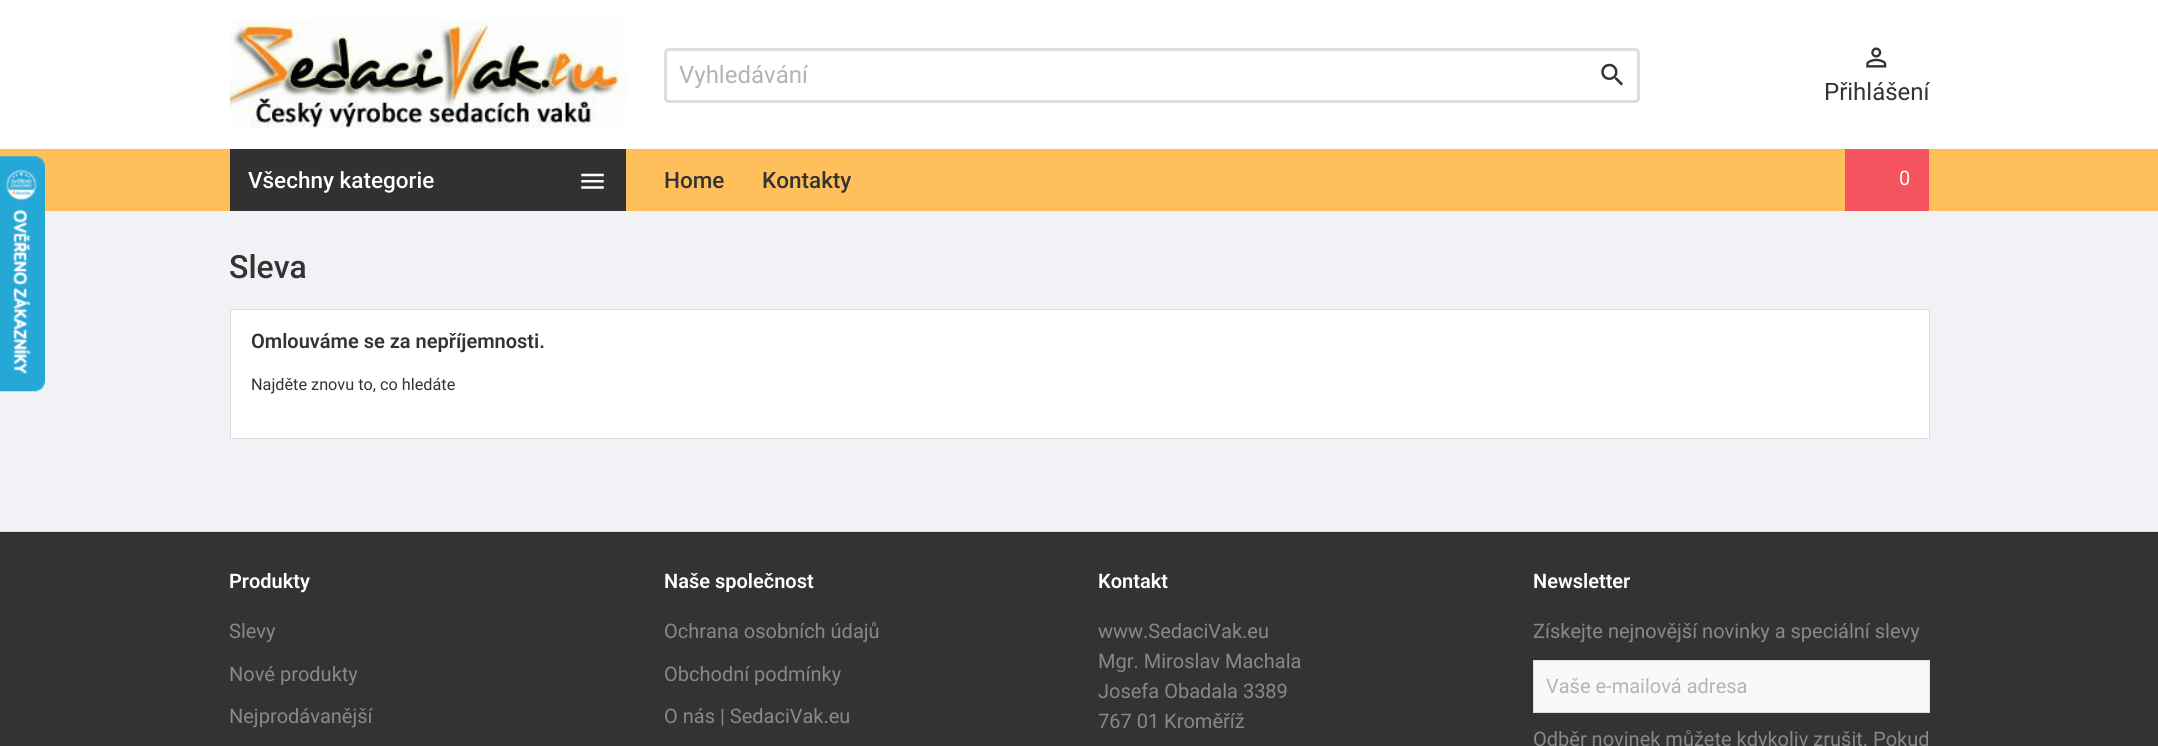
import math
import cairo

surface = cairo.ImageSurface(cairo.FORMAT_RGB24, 2158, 746)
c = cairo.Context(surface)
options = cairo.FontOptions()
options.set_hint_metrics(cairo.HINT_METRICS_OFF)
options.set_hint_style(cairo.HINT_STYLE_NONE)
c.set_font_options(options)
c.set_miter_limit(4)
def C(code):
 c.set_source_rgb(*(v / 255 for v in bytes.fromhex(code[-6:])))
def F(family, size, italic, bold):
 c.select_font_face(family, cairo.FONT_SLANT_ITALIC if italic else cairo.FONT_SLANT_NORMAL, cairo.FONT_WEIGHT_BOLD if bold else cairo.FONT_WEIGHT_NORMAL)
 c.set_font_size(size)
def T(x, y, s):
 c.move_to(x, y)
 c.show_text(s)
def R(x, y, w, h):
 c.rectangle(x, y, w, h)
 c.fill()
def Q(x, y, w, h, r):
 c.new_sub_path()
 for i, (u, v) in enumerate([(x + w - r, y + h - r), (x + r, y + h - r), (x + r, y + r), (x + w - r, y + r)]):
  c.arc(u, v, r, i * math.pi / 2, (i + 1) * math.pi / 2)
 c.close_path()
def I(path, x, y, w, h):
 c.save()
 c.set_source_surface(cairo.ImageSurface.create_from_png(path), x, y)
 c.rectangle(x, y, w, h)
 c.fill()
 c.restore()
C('ffffff')
c.paint()
C('ffbf5a')
R(0,149,2158,62)
C('f0f2f5')
R(0,211,2158,320)
I('1.png',0,156,45,236)
I('2.png',230,18,397,110)
Q(665.5,49.5,973,52,3.5)
C('dddddd')
c.set_line_width(3)
c.stroke()
F('Roboto',24,0,0)
C('b4b4b4')
T(679,83,'Vyhledávání')
I('3.png',1601,63,22,23)
I('4.png',1866,47,21,21)
C('333333')
T(1824,100,'Přihlášení')
C('313131')
R(230,149,396,62)
F('Roboto Medium',22.5,0,0)
C('ffffff')
T(248,188,'Všechny kategorie')
I('5.png',581,173,23,16)
C('333333')
T(664,188,'Home')
T(762,188,'Kontakty')
C('f5535e')
R(1845,149,84,62)
F('Roboto',20,0,0)
C('ffffff')
T(1899,185,'0')
F('Roboto Medium',32,0,0)
C('333333')
T(229,278,'Sleva')
C('ffffff')
c.rectangle(230.5,309.5,1699,129)
c.fill_preserve()
C('dddddd')
c.set_line_width(1)
c.stroke()
F('Roboto SemiBold',20,0,0)
C('333333')
T(251,348,'Omlouváme se za nepříjemnosti.')
F('Roboto',16.25,0,0)
T(251,390,'Najděte znovu to, co hledáte')
R(0,532,2158,214)
C('dddddd')
R(0,531,2158,1)
F('Roboto SemiBold',20,0,0)
C('ffffff')
T(229,588,'Produkty')
F('Roboto',20,0,0)
C('888888')
T(229,638,'Slevy')
T(229,681,'Nové produkty')
T(229,723,'Nejprodávanější')
F('Roboto SemiBold',20,0,0)
C('ffffff')
T(664,588,'Naše společnost')
F('Roboto',20,0,0)
C('888888')
T(664,638,'Ochrana osobních údajů')
T(664,681,'Obchodní podmínky')
T(664,723,'O nás | SedaciVak.eu')
F('Roboto SemiBold',20,0,0)
C('ffffff')
T(1098,588,'Kontakt')
F('Roboto',20,0,0)
C('888888')
T(1098,638,'www.SedaciVak.eu')
T(1098,668,'Mgr. Miroslav Machala')
T(1098,698,'Josefa Obadala 3389')
T(1098,728,'767 01 Kroměříž')
F('Roboto SemiBold',20,0,0)
C('ffffff')
T(1533,588,'Newsletter')
F('Roboto',20,0,0)
C('888888')
T(1533,638,'Získejte nejnovější novinky a speciální slevy')
C('f9f9f9')
c.rectangle(1533.5,660.5,396,52)
c.fill_preserve()
C('dddddd')
c.stroke()
C('b4b4b4')
T(1546,693,'Vaše e-mailová adresa')
C('888888')
T(1533,746,'Odběr novinek můžete kdykoliv zrušit. Pokud')
surface.write_to_png('o.png')
